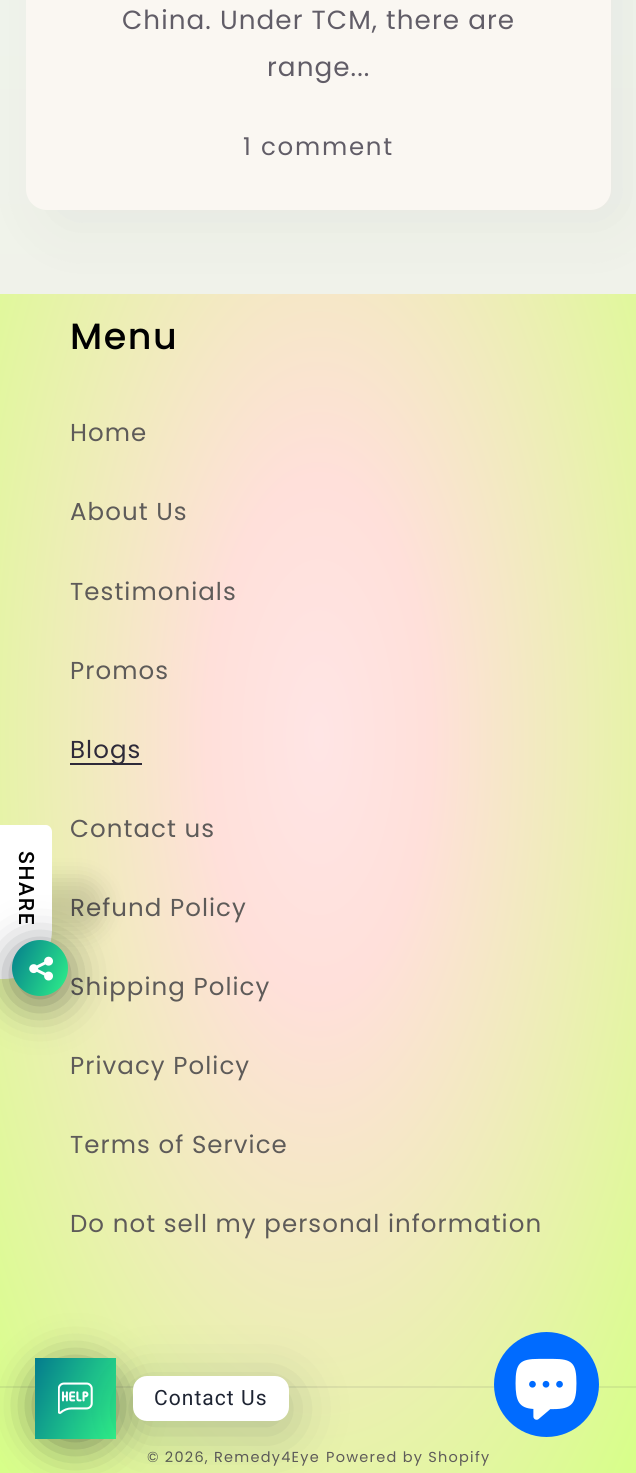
import math
import cairo

surface = cairo.ImageSurface(cairo.FORMAT_RGB24, 636, 1473)
c = cairo.Context(surface)
options = cairo.FontOptions()
options.set_hint_metrics(cairo.HINT_METRICS_OFF)
options.set_hint_style(cairo.HINT_STYLE_NONE)
c.set_font_options(options)
c.set_miter_limit(4)
def C(code):
 c.set_source_rgb(*(v / 255 for v in bytes.fromhex(code[-6:])))
def F(family, size, italic, bold):
 c.select_font_face(family, cairo.FONT_SLANT_ITALIC if italic else cairo.FONT_SLANT_NORMAL, cairo.FONT_WEIGHT_BOLD if bold else cairo.FONT_WEIGHT_NORMAL)
 c.set_font_size(size)
def L(x, y, s, letter, word):
 c.move_to(x, y)
 for ch in s:
  c.show_text(ch)
  c.rel_move_to(letter + word * (ch == ' '), 0)
def R(x, y, w, h):
 c.rectangle(x, y, w, h)
 c.fill()
def Q(x, y, w, h, r):
 c.new_sub_path()
 for i, (u, v) in enumerate([(x + w - r, y + h - r), (x + r, y + h - r), (x + r, y + r), (x + w - r, y + r)]):
  c.arc(u, v, r, i * math.pi / 2, (i + 1) * math.pi / 2)
 c.close_path()
def S(x, y, w, h, r, blur, alpha):
 c.push_group_with_content(cairo.CONTENT_ALPHA)
 c.set_operator(cairo.OPERATOR_SOURCE)
 for i in range(15, -16, -2):
  e = blur * i / 6
  if min(w, h) + 2 * e > 0:
   c.set_source_rgba(0, 0, 0, alpha * math.erfc((i - 1) / 8.5) / 2)
   Q(x - e, y - e, w + 2 * e, h + 2 * e, max(0, min(r + e + blur * .6, min(w, h) / 2 + e)))
   c.fill()
 c.mask(c.pop_group())
def I(path, x, y, w, h):
 c.save()
 c.set_source_surface(cairo.ImageSurface.create_from_png(path), x, y)
 c.rectangle(x, y, w, h)
 c.fill()
 c.restore()
C('ffffff')
c.paint()
gradient = cairo.LinearGradient(318,0,319,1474)
gradient.add_color_stop_rgba(0,0.941,0.957,0.925,1)
gradient.add_color_stop_rgba(1,0.945,0.922,0.886,1)
c.set_source(gradient)
R(0,0,636,294)
C('2e2a39')
S(44,-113,584,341,21,30.5,.05)
C('faf7f2')
Q(26,-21,585,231,21)
c.fill()
F('Poppins',26.25,0,0)
C('615d67')
L(122,29,'China. Under TCM, there are',1.05,0)
L(267,76,'range...',1.05,0)
F('Poppins',24.5,0,0)
L(243,155,'1 comment',1.75,0)
gradient = cairo.RadialGradient(0,0,0,0,0,1)
gradient.set_matrix(cairo.Matrix(1 / 450, 0, 0, 1 / 1042, -1 * 319 / 450, -1 * 737 / 1042))
gradient.add_color_stop_rgba(0,1,0.898,0.898,1)
gradient.add_color_stop_rgba(.25,1,0.878,0.855,1)
gradient.add_color_stop_rgba(1,0.843,1,0.537,1)
c.set_source(gradient)
R(0,294,636,1179)
gradient = cairo.RadialGradient(0,0,0,0,0,1)
gradient.set_matrix(cairo.Matrix(1 / 450, 0, 0, 1 / 1042, -1 * 319 / 450, -1 * 737 / 1042))
gradient.add_color_stop_rgba(0,0.933,0.839,0.843,1)
gradient.add_color_stop_rgba(.25,0.933,0.82,0.804,1)
gradient.add_color_stop_rgba(1,0.788,0.933,0.514,1)
c.set_source(gradient)
R(0,1386,636,2)
F('Poppins Medium',36.5,0,0)
C('000000')
L(70,349,'Menu',1.5,0)
F('Poppins',24.5,0,0)
C('5e5b59')
L(70,441,'Home',1.05,0)
L(70,520,'About Us',1.05,0)
L(70,600,'Testimonials',1.05,0)
L(70,679,'Promos',1.05,0)
C('2e2a39')
R(70,763,72,2)
L(70,758,'Blogs',1.05,0)
C('5e5b59')
L(70,837,'Contact us',1.05,0)
L(70,916,'Refund Policy',1.05,0)
L(70,995,'Shipping Policy',1.05,0)
L(70,1074,'Privacy Policy',1.05,0)
L(70,1153,'Terms of Service',1.05,0)
L(70,1232,'Do not sell my personal information',1.05,0)
F('Poppins',14.5,0,0)
C('5b5d53')
L(147,1462,'© 2026,',1.25,0)
C('5e5b59')
L(214,1462,'Remedy4Eye',1.25,0)
L(326,1462,'Powered by Shopify',1.25,0)
C('000000')
S(-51,880,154,53,49,12,.15)
C('ffffff')
c.new_path()
c.move_to(0,979)
c.line_to(0,825)
c.line_to(46,825)
c.curve_to(49,825,52,828,52,832)
c.line_to(52,930)
c.curve_to(52,957,31,979,4,979)
c.close_path()
c.fill()
F('Roboto Medium',21,0,0)
C('000000')
c.save()
c.translate(19,851)
c.rotate(90 * math.pi / 180)
L(0,0,'SHARE',1.75,0)
c.restore()
C('020610')
S(12,947,56,56,28,21,.5)
gradient = cairo.LinearGradient(6.5,952,74,983)
gradient.add_color_stop_rgba(0,0.016,0.486,0.553,1)
gradient.add_color_stop_rgba(1,0.184,0.949,0.537,1)
c.set_source(gradient)
c.arc(40,968,28,0,2 * math.pi)
c.fill()
I('1.png',29,956,24,25)
C('020610')
S(35,1365,81,81,40.5,21,.5)
gradient = cairo.LinearGradient(27,1376,124,1421)
gradient.add_color_stop_rgba(0,0.016,0.486,0.553,1)
gradient.add_color_stop_rgba(1,0.184,0.949,0.537,1)
c.set_source(gradient)
R(35,1358,81,81)
C('00122e')
S(133,1386,156,46,14,28,.24)
I('2.png',58,1382,35,32)
C('ffffff')
Q(133,1376,156,45,14)
c.fill()
F('Roboto',21,0,0)
C('1e2433')
L(154,1405,'Contact Us',1.05,0)
C('006bff')
c.new_path()
c.arc(546.5,1384.5,52.5,0,2 * math.pi)
c.fill()
I('3.png',515,1358,62,62)
surface.write_to_png('o.png')
